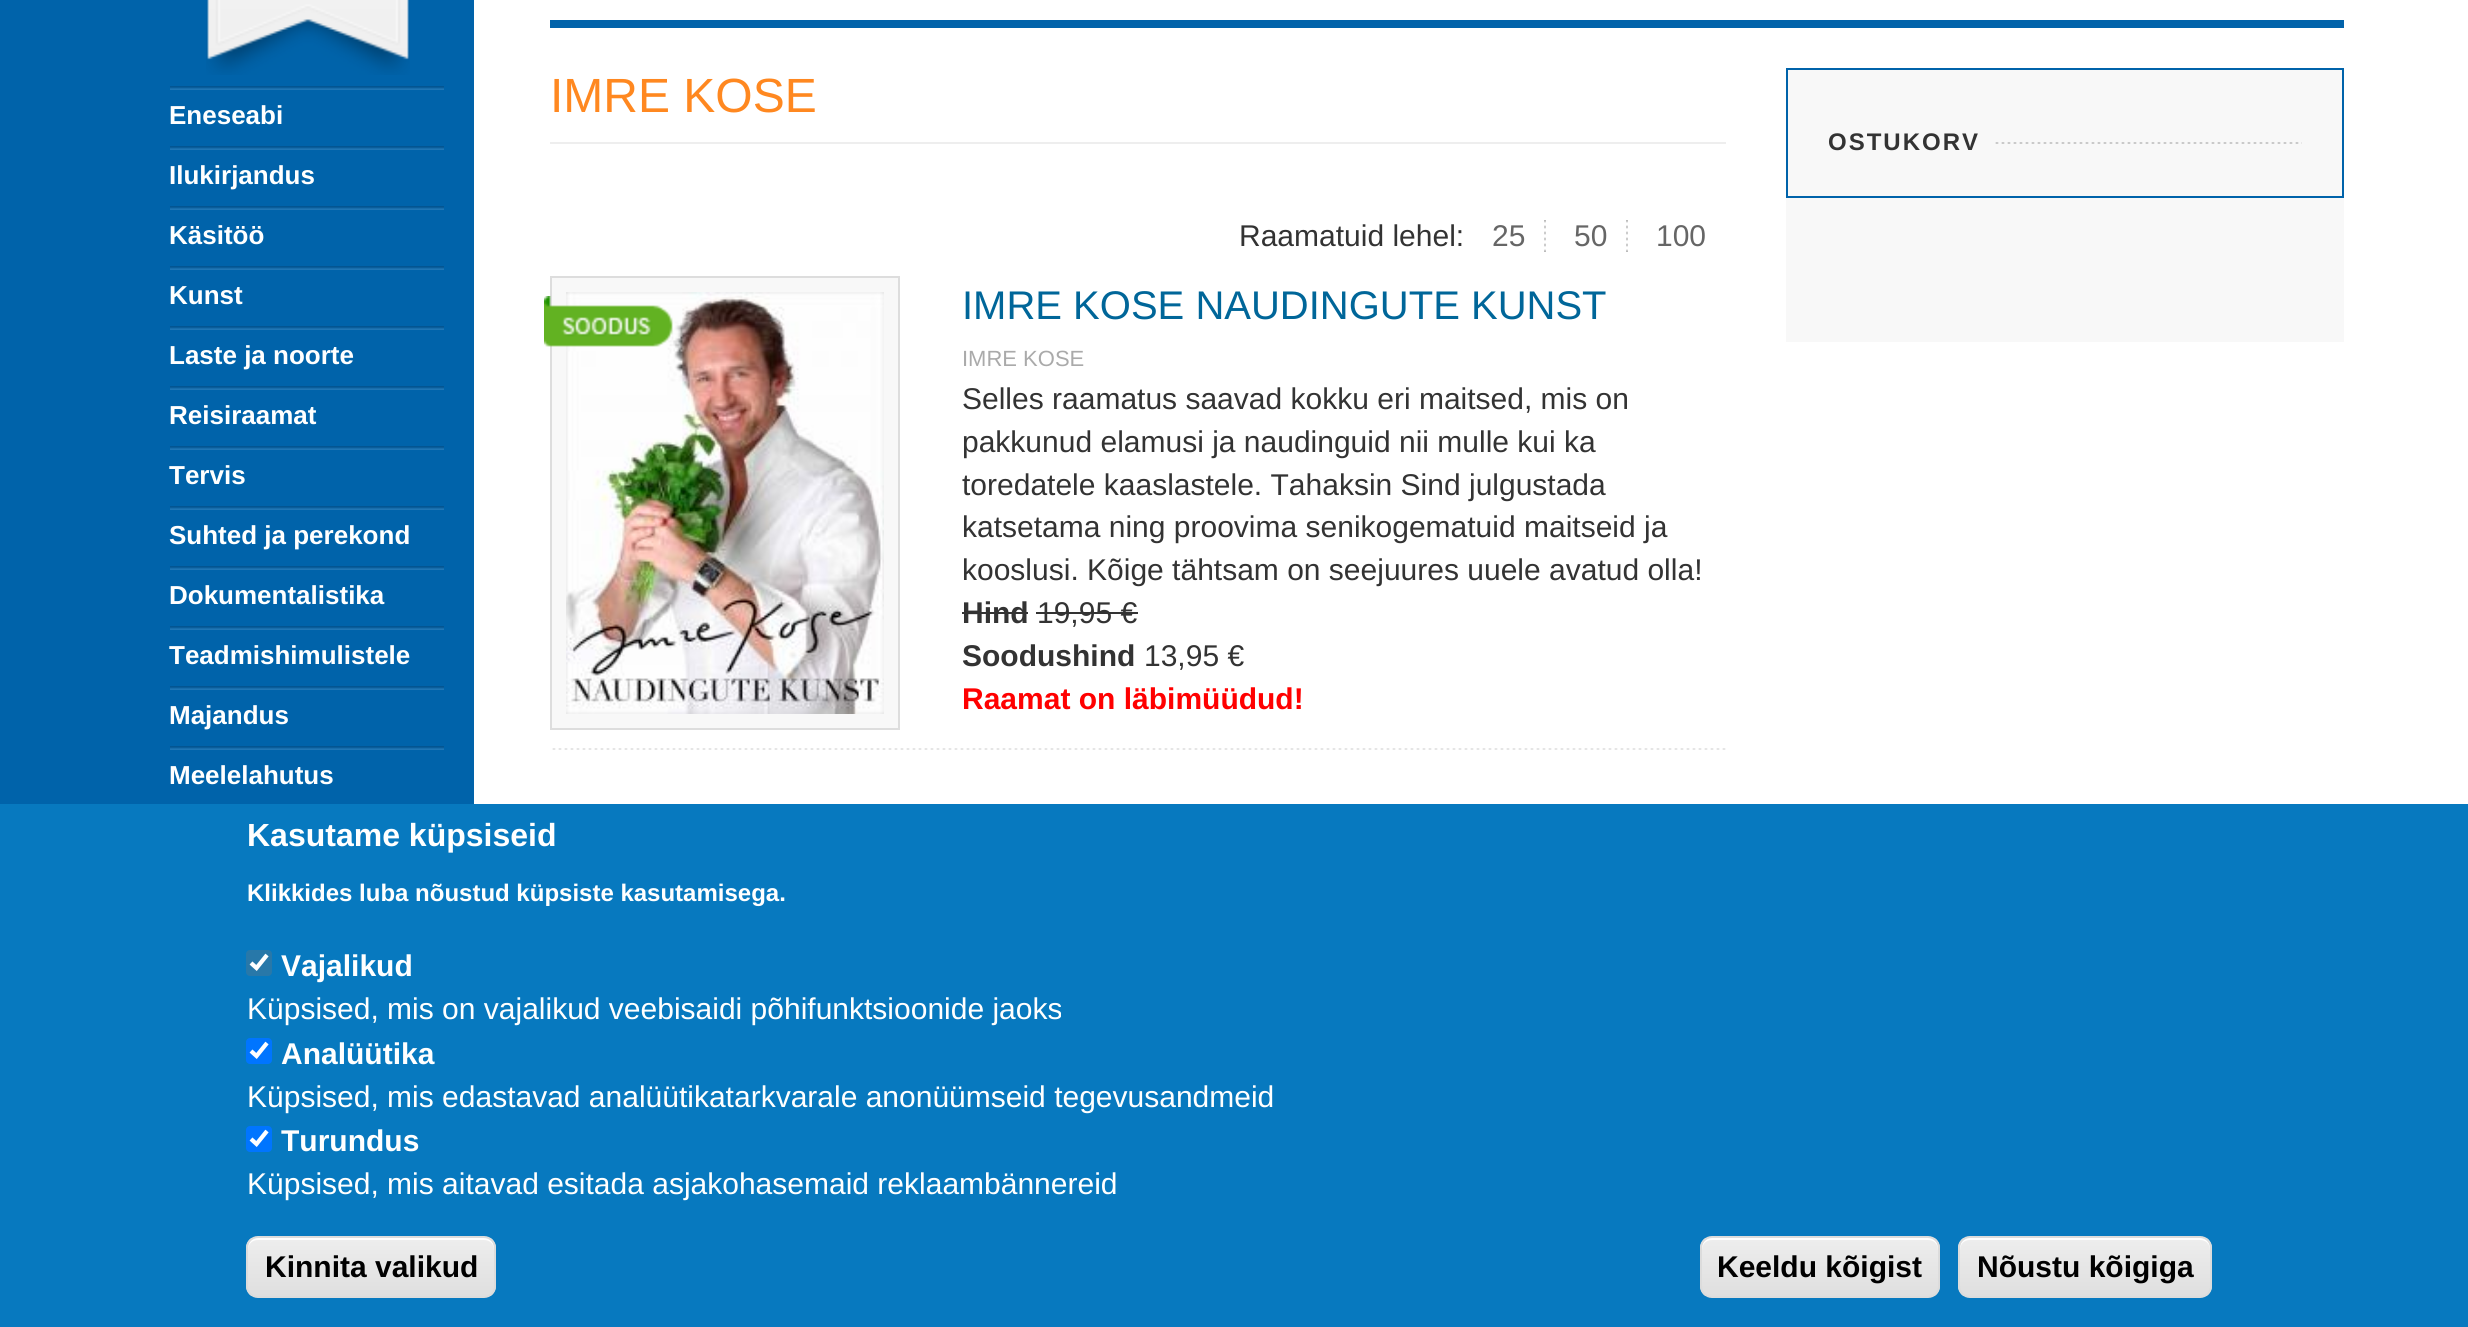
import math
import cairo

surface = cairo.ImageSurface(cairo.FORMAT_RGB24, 2468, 1327)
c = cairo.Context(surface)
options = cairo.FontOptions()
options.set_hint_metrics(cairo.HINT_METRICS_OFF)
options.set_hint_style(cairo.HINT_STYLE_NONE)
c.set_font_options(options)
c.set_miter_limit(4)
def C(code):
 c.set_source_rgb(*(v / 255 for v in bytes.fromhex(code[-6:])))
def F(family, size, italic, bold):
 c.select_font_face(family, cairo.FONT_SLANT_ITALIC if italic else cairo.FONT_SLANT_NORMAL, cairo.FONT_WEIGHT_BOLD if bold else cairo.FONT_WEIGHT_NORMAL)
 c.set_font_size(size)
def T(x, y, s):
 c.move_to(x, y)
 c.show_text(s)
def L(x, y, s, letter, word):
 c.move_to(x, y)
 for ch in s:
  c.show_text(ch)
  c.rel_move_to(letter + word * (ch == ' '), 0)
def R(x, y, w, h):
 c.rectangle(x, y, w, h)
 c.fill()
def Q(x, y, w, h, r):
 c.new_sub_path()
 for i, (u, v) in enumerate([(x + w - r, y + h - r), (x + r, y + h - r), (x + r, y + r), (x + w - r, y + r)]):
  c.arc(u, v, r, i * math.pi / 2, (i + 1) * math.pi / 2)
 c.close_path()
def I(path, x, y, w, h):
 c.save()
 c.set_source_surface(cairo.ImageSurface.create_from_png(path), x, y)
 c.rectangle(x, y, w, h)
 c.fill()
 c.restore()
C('ffffff')
c.paint()
C('0063aa')
R(0,0,474,804)
I('1.png',206,0,204,75)
I('2.png',170,86,274,4)
F('Liberation Sans',26,0,1)
C('ffffff')
T(169,124,'Eneseabi')
I('2.png',170,146,274,4)
T(169,184,'Ilukirjandus')
I('2.png',170,206,274,4)
T(169,244,'Käsitöö')
I('2.png',170,266,274,4)
T(169,304,'Kunst')
I('2.png',170,326,274,4)
T(169,364,'Laste ja noorte')
I('2.png',170,386,274,4)
T(169,424,'Reisiraamat')
I('2.png',170,446,274,4)
T(169,484,'Tervis')
I('2.png',170,506,274,4)
T(169,544,'Suhted ja perekond')
I('2.png',170,566,274,4)
T(169,604,'Dokumentalistika')
I('2.png',170,626,274,4)
T(169,664,'Teadmishimulistele')
I('2.png',170,686,274,4)
T(169,724,'Majandus')
I('2.png',170,746,274,4)
T(169,784,'Meelelahutus')
C('0263aa')
R(550,20,1794,8)
C('eeeeee')
R(550,142,1176,2)
F('Liberation Sans',48,0,0)
C('ff8820')
T(550,112,'IMRE KOSE')
F('Liberation Sans',30,0,0)
C('333333')
T(1239,246,'Raamatuid lehel:')
C('666666')
T(1492,246,'25')
I('3.png',1544,220,2,32)
T(1574,246,'50')
I('3.png',1626,220,2,32)
T(1656,246,'100')
I('4.png',552,748,1174,2)
C('f8f8f8')
c.rectangle(551,277,348,452)
c.fill_preserve()
C('dddddd')
c.stroke()
I('5.png',566,292,318,422)
I('6.png',544,296,129,51)
F('Liberation Sans',40,0,0)
C('006699')
T(962,319,'IMRE KOSE NAUDINGUTE KUNST')
F('Liberation Sans',22,0,0)
C('aaaaaa')
T(962,366,'IMRE KOSE')
F('Liberation Sans',30,0,0)
C('333333')
T(962,409,'Selles raamatus saavad kokku eri maitsed, mis on')
T(962,452,'pakkunud elamusi ja naudinguid nii mulle kui ka')
T(962,495,'toredatele kaaslastele. Tahaksin Sind julgustada')
T(962,537,'katsetama ning proovima senikogematuid maitseid ja')
T(962,580,'kooslusi. Kõige tähtsam on seejuures uuele avatud olla!')
F('Liberation Sans',30,0,1)
T(962,623,'Hind')
R(962,612,66,2)
F('Liberation Sans',30,0,0)
T(1037,623,'19,95 €')
R(1036,612,102,2)
F('Liberation Sans',30,0,1)
T(962,666,'Soodushind')
F('Liberation Sans',30,0,0)
T(1144,666,'13,95 €')
F('Liberation Sans',30,0,1)
C('ff0000')
T(962,709,'Raamat on läbimüüdud!')
C('f8f8f8')
R(1786,70,558,272)
c.rectangle(1787,69,556,128)
C('0063aa')
c.stroke()
I('7.png',1995,142,307,2)
F('Liberation Sans',24,0,1)
C('333333')
L(1828,150,'OSTUKORV',2,0)
C('0779bf')
R(0,804,2468,523)
F('Liberation Sans',32,0,1)
C('ffffff')
T(247,846,'Kasutame küpsiseid')
F('Liberation Sans',24,0,1)
T(247,901,'Klikkides luba nõustud küpsiste kasutamisega.')
C('2878a9')
Q(246,950,26,26,4)
c.fill()
c.new_path()
c.move_to(251,963)
c.line_to(256.5,968)
c.line_to(267,955)
C('ffffff')
c.set_line_width(4.2)
c.stroke()
F('Liberation Sans',30,0,1)
T(281,976,'Vajalikud')
F('Liberation Sans',30,0,0)
T(247,1019,'Küpsised, mis on vajalikud veebisaidi põhifunktsioonide jaoks')
C('0075ff')
Q(246,1038,26,26,4)
c.fill()
c.new_path()
c.move_to(251,1051)
c.line_to(256.5,1056)
c.line_to(267,1043)
C('ffffff')
c.stroke()
F('Liberation Sans',30,0,1)
T(281,1064,'Analüütika')
F('Liberation Sans',30,0,0)
T(247,1107,'Küpsised, mis edastavad analüütikatarkvarale anonüümseid tegevusandmeid')
C('0075ff')
Q(246,1126,26,26,4)
c.fill()
c.new_path()
c.move_to(251,1139)
c.line_to(256.5,1144)
c.line_to(267,1131)
C('ffffff')
c.stroke()
F('Liberation Sans',30,0,1)
T(281,1151,'Turundus')
F('Liberation Sans',30,0,0)
T(247,1194,'Küpsised, mis aitavad esitada asjakohasemaid reklaambännereid')
c.save()
Q(246,1236,250,62,12)
c.clip()
gradient = cairo.LinearGradient(371,1238,371,1296)
gradient.add_color_stop_rgba(.05,0.929,0.929,0.929,1)
gradient.add_color_stop_rgba(1,0.875,0.875,0.875,1)
c.set_source(gradient)
R(246,1238,250,58)
c.restore()
c.new_path()
c.move_to(258,1240)
c.line_to(484,1240)
c.curve_to(490,1240,494,1244,494,1250)
c.line_to(494,1248)
c.curve_to(494,1242,490,1238,484,1238)
c.line_to(258,1238)
c.curve_to(252,1238,248,1242,248,1248)
c.line_to(248,1250)
c.curve_to(248,1244,252,1240,258,1240)
c.close_path()
c.fill()
Q(247,1237,248,60,11)
C('dcdcdc')
c.set_line_width(2)
c.stroke()
F('Liberation Sans',30,0,1)
C('000000')
T(265,1277,'Kinnita valikud')
c.save()
Q(1700,1236,240,62,12)
c.clip()
gradient = cairo.LinearGradient(1820,1238,1820,1296)
gradient.add_color_stop_rgba(.05,0.929,0.929,0.929,1)
gradient.add_color_stop_rgba(1,0.875,0.875,0.875,1)
c.set_source(gradient)
R(1700,1238,240,58)
c.restore()
C('ffffff')
c.new_path()
c.move_to(1712,1240)
c.line_to(1928,1240)
c.curve_to(1934,1240,1938,1244,1938,1250)
c.line_to(1938,1248)
c.curve_to(1938,1242,1934,1238,1928,1238)
c.line_to(1712,1238)
c.curve_to(1706,1238,1702,1242,1702,1248)
c.line_to(1702,1250)
c.curve_to(1702,1244,1706,1240,1712,1240)
c.close_path()
c.fill()
Q(1701,1237,238,60,11)
C('dcdcdc')
c.stroke()
C('000000')
T(1717,1277,'Keeldu kõigist')
c.save()
Q(1958,1236,254,62,12)
c.clip()
gradient = cairo.LinearGradient(2085,1238,2085,1296)
gradient.add_color_stop_rgba(.05,0.929,0.929,0.929,1)
gradient.add_color_stop_rgba(1,0.875,0.875,0.875,1)
c.set_source(gradient)
R(1958,1238,254,58)
c.restore()
C('ffffff')
c.new_path()
c.move_to(1970,1240)
c.line_to(2200,1240)
c.curve_to(2206,1240,2210,1244,2210,1250)
c.line_to(2210,1248)
c.curve_to(2210,1242,2206,1238,2200,1238)
c.line_to(1970,1238)
c.curve_to(1964,1238,1960,1242,1960,1248)
c.line_to(1960,1250)
c.curve_to(1960,1244,1964,1240,1970,1240)
c.close_path()
c.fill()
Q(1959,1237,252,60,11)
C('dcdcdc')
c.stroke()
C('000000')
T(1977,1277,'Nõustu kõigiga')
surface.write_to_png('o.png')
